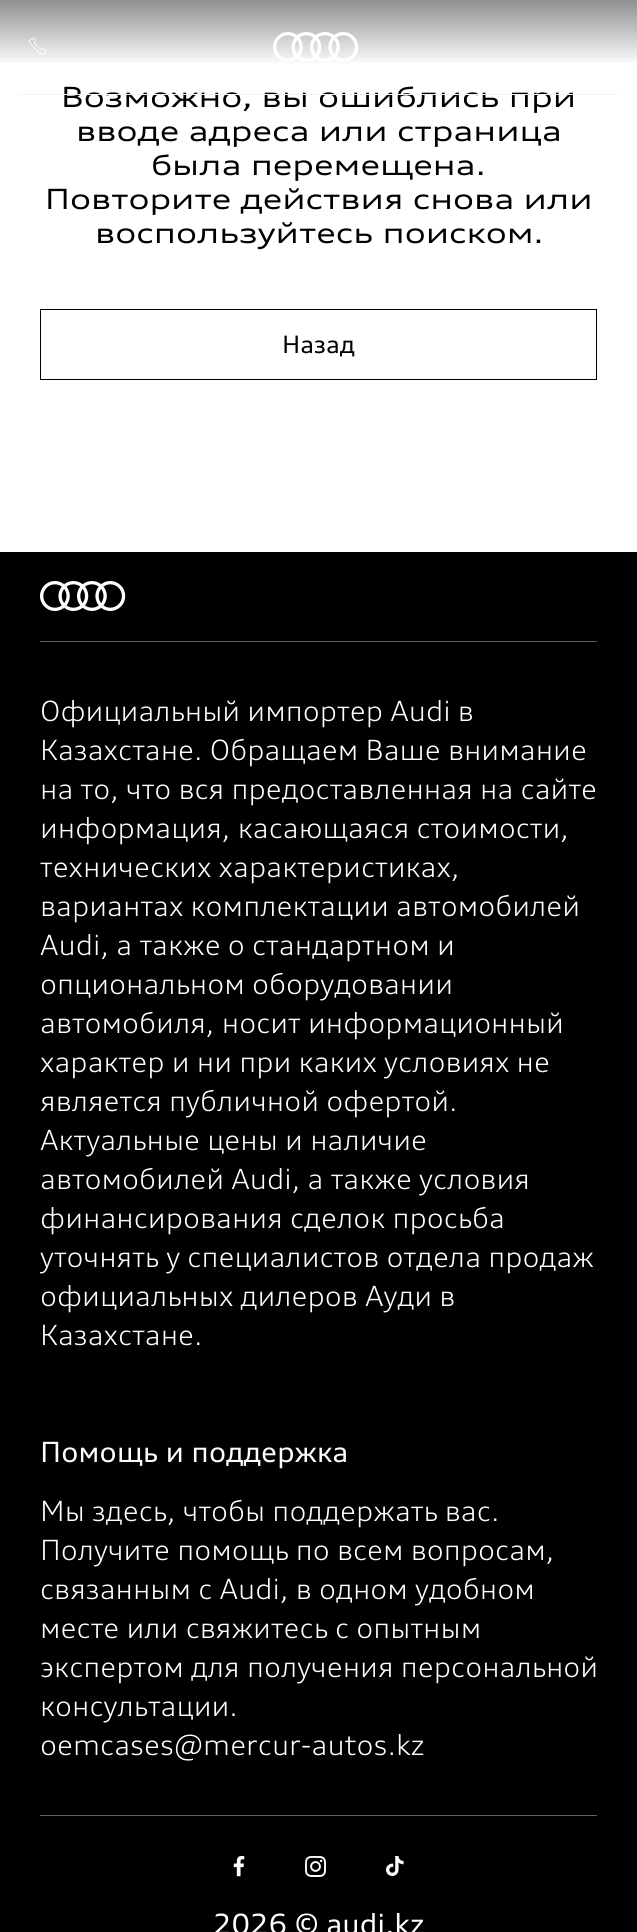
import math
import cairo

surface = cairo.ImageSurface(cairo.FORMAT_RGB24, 637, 1932)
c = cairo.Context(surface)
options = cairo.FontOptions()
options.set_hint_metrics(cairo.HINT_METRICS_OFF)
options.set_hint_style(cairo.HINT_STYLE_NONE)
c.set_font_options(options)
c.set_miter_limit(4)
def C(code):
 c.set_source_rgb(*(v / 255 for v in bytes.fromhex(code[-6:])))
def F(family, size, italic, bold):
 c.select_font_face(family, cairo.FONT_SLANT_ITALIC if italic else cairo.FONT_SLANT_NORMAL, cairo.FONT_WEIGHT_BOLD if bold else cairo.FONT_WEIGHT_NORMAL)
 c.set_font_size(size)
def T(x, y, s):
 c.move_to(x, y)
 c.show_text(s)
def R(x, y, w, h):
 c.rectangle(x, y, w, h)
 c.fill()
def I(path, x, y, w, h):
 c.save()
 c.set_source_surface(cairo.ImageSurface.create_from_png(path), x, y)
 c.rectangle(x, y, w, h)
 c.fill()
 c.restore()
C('ffffff')
c.paint()
gradient = cairo.LinearGradient(319,0,319,95)
gradient.add_color_stop_rgba(0,0,0,0,.44)
gradient.add_color_stop_rgba(.7,0,0,0,0)
c.set_source(gradient)
R(0,0,637,63)
F('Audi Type',27.9,0,0)
C('000000')
T(61,107,'Возможно, вы ошиблись при')
C('f2f2f2')
R(20,94,597,1)
I('1.png',28,37,18,18)
I('2.png',273,32,86,30)
C('000000')
T(76,141,'вводе адреса или страница')
T(151,175,'была перемещена.')
T(45,209,'Повторите действия снова или')
T(95,243,'воспользуйтесь поиском.')
c.rectangle(40.5,309.5,556,70)
c.set_line_width(1)
c.stroke()
F('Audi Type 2',24,0,0)
T(282,353,'Назад')
R(0,552,637,1380)
I('3.png',40,581,86,30)
C('626262')
R(40,641,557,1)
F('Audi Type Light',27.9,0,0)
C('ffffff')
T(40,721,'Официальный импортер Audi в')
T(40,760,'Казахстане. Обращаем Ваше внимание')
T(40,799,'на то, что вся предоставленная на сайте')
T(40,838,'информация, касающаяся стоимости,')
T(40,877,'технических характеристиках,')
T(40,916,'вариантах комплектации автомобилей')
T(40,955,'Audi, а также о стандартном и')
T(40,994,'опциональном оборудовании')
T(40,1033,'автомобиля, носит информационный')
T(40,1072,'характер и ни при каких условиях не')
T(40,1111,'является публичной офертой.')
T(40,1150,'Актуальные цены и наличие')
T(40,1189,'автомобилей Audi, а также условия')
T(40,1228,'финансирования сделок просьба')
T(40,1267,'уточнять у специалистов отдела продаж')
T(40,1306,'официальных дилеров Ауди в')
T(40,1345,'Казахстане.')
F('Audi Type 2',27.9,0,0)
T(40,1462,'Помощь и поддержка')
F('Audi Type Light',27.9,0,0)
T(40,1521,'Мы здесь, чтобы поддержать вас.')
T(40,1560,'Получите помощь по всем вопросам,')
T(40,1599,'связанным с Audi, в одном удобном')
T(40,1638,'месте или свяжитесь с опытным')
T(40,1677,'экспертом для получения персональной')
T(40,1716,'консультации.')
T(40,1755,'oemcases@mercur-autos.kz')
C('626262')
R(40,1815,557,1)
I('4.png',233,1856,12,21)
I('5.png',305,1856,21,21)
I('6.png',386,1856,18,20)
F('Audi Type 2',27.9,0,0)
C('ffffff')
T(213,1934,'2026 © audi.kz')
surface.write_to_png('o.png')
